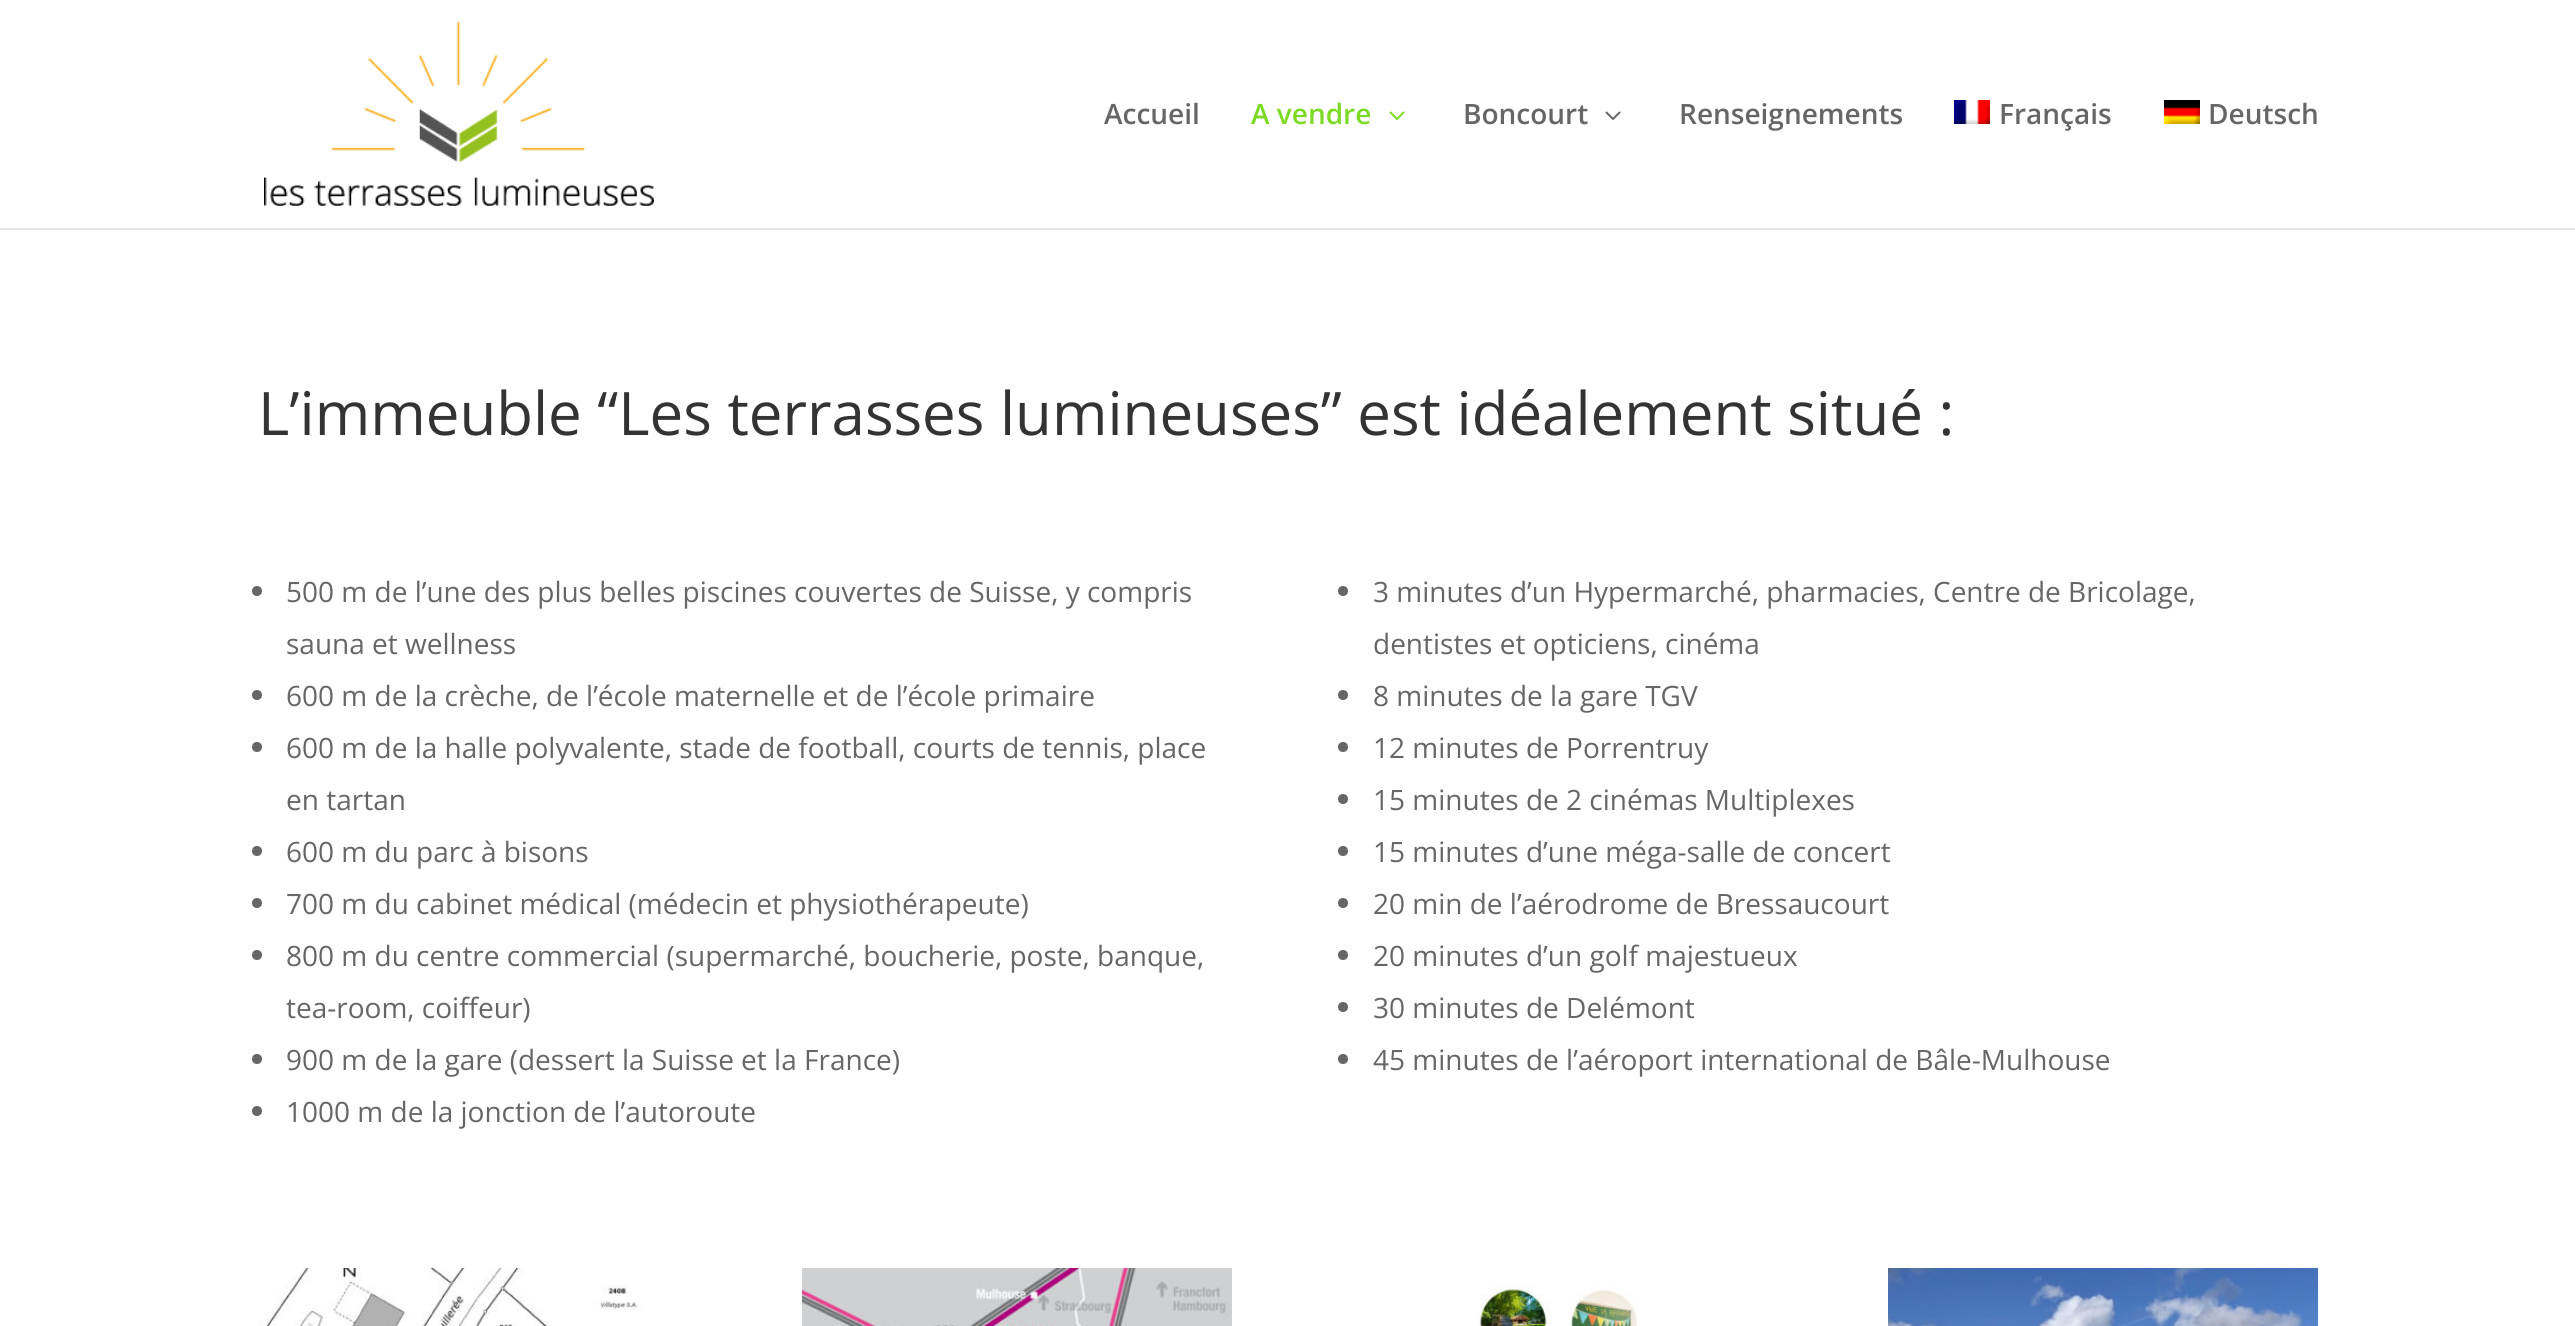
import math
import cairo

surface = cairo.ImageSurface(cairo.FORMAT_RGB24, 2575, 1326)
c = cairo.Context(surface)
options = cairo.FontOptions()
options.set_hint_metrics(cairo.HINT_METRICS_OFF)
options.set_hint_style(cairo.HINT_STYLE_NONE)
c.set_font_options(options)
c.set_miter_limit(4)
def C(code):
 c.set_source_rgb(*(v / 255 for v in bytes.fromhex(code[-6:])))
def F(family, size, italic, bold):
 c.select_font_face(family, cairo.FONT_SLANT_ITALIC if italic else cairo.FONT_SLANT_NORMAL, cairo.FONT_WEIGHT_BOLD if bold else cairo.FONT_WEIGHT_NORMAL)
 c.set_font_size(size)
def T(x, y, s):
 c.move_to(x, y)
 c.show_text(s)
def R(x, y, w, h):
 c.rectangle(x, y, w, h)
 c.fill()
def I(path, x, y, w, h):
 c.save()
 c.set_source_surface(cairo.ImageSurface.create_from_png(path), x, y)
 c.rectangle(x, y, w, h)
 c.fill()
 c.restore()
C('ffffff')
c.paint()
C('e6e6e6')
R(0,228,2575,2)
I('1.png',264,22,390,184)
F('Open Sans SemiBold',28,0,0)
C('666666')
T(1104,124,'Accueil')
C('7cda24')
T(1251,124,'A vendre')
I('2.png',1389,111,16,9)
C('666666')
T(1463,124,'Boncourt')
I('3.png',1605,111,16,9)
T(1679,124,'Renseignements')
I('4.png',1954,100,36,24)
T(1999,124,'Français')
I('5.png',2164,100,36,24)
T(2208,124,'Deutsch')
F('Open Sans',60,0,0)
C('333333')
T(258,435,'L’immeuble “Les terrasses lumineuses” est idéalement situé :')
C('666666')
c.new_path()
c.arc(257,591,5,0,2 * math.pi)
c.fill()
F('Open Sans',28,0,0)
T(286,602,'500 m de l’une des plus belles piscines couvertes de Suisse, y compris')
T(286,654,'sauna et wellness')
c.new_path()
c.arc(257,695,5,0,2 * math.pi)
c.fill()
T(286,706,'600 m de la crèche, de l’école maternelle et de l’école primaire')
c.new_path()
c.arc(257,747,5,0,2 * math.pi)
c.fill()
T(286,758,'600 m de la halle polyvalente, stade de football, courts de tennis, place')
T(286,810,'en tartan')
c.new_path()
c.arc(257,851,5,0,2 * math.pi)
c.fill()
T(286,862,'600 m du parc à bisons')
c.new_path()
c.arc(257,903,5,0,2 * math.pi)
c.fill()
T(286,914,'700 m du cabinet médical (médecin et physiothérapeute)')
c.new_path()
c.arc(257,955,5,0,2 * math.pi)
c.fill()
T(286,966,'800 m du centre commercial (supermarché, boucherie, poste, banque,')
T(286,1018,'tea-room, coiffeur)')
c.new_path()
c.arc(257,1059,5,0,2 * math.pi)
c.fill()
T(286,1070,'900 m de la gare (dessert la Suisse et la France)')
c.new_path()
c.arc(257,1111,5,0,2 * math.pi)
c.fill()
T(286,1122,'1000 m de la jonction de l’autoroute')
c.new_path()
c.arc(1343,591,5,0,2 * math.pi)
c.fill()
T(1373,602,'3 minutes d’un Hypermarché, pharmacies, Centre de Bricolage,')
T(1373,654,'dentistes et opticiens, cinéma')
c.new_path()
c.arc(1343,695,5,0,2 * math.pi)
c.fill()
T(1373,706,'8 minutes de la gare TGV')
c.new_path()
c.arc(1343,747,5,0,2 * math.pi)
c.fill()
T(1373,758,'12 minutes de Porrentruy')
c.new_path()
c.arc(1343,799,5,0,2 * math.pi)
c.fill()
T(1373,810,'15 minutes de 2 cinémas Multiplexes')
c.new_path()
c.arc(1343,851,5,0,2 * math.pi)
c.fill()
T(1373,862,'15 minutes d’une méga-salle de concert')
c.new_path()
c.arc(1343,903,5,0,2 * math.pi)
c.fill()
T(1373,914,'20 min de l’aérodrome de Bressaucourt')
c.new_path()
c.arc(1343,955,5,0,2 * math.pi)
c.fill()
T(1373,966,'20 minutes d’un golf majestueux')
c.new_path()
c.arc(1343,1007,5,0,2 * math.pi)
c.fill()
T(1373,1018,'30 minutes de Delémont')
c.new_path()
c.arc(1343,1059,5,0,2 * math.pi)
c.fill()
T(1373,1070,'45 minutes de l’aéroport international de Bâle-Mulhouse')
I('6.png',258,1268,387,58)
I('7.png',802,1268,430,58)
I('8.png',1476,1285,161,41)
I('9.png',1888,1268,430,58)
surface.write_to_png('o.png')
